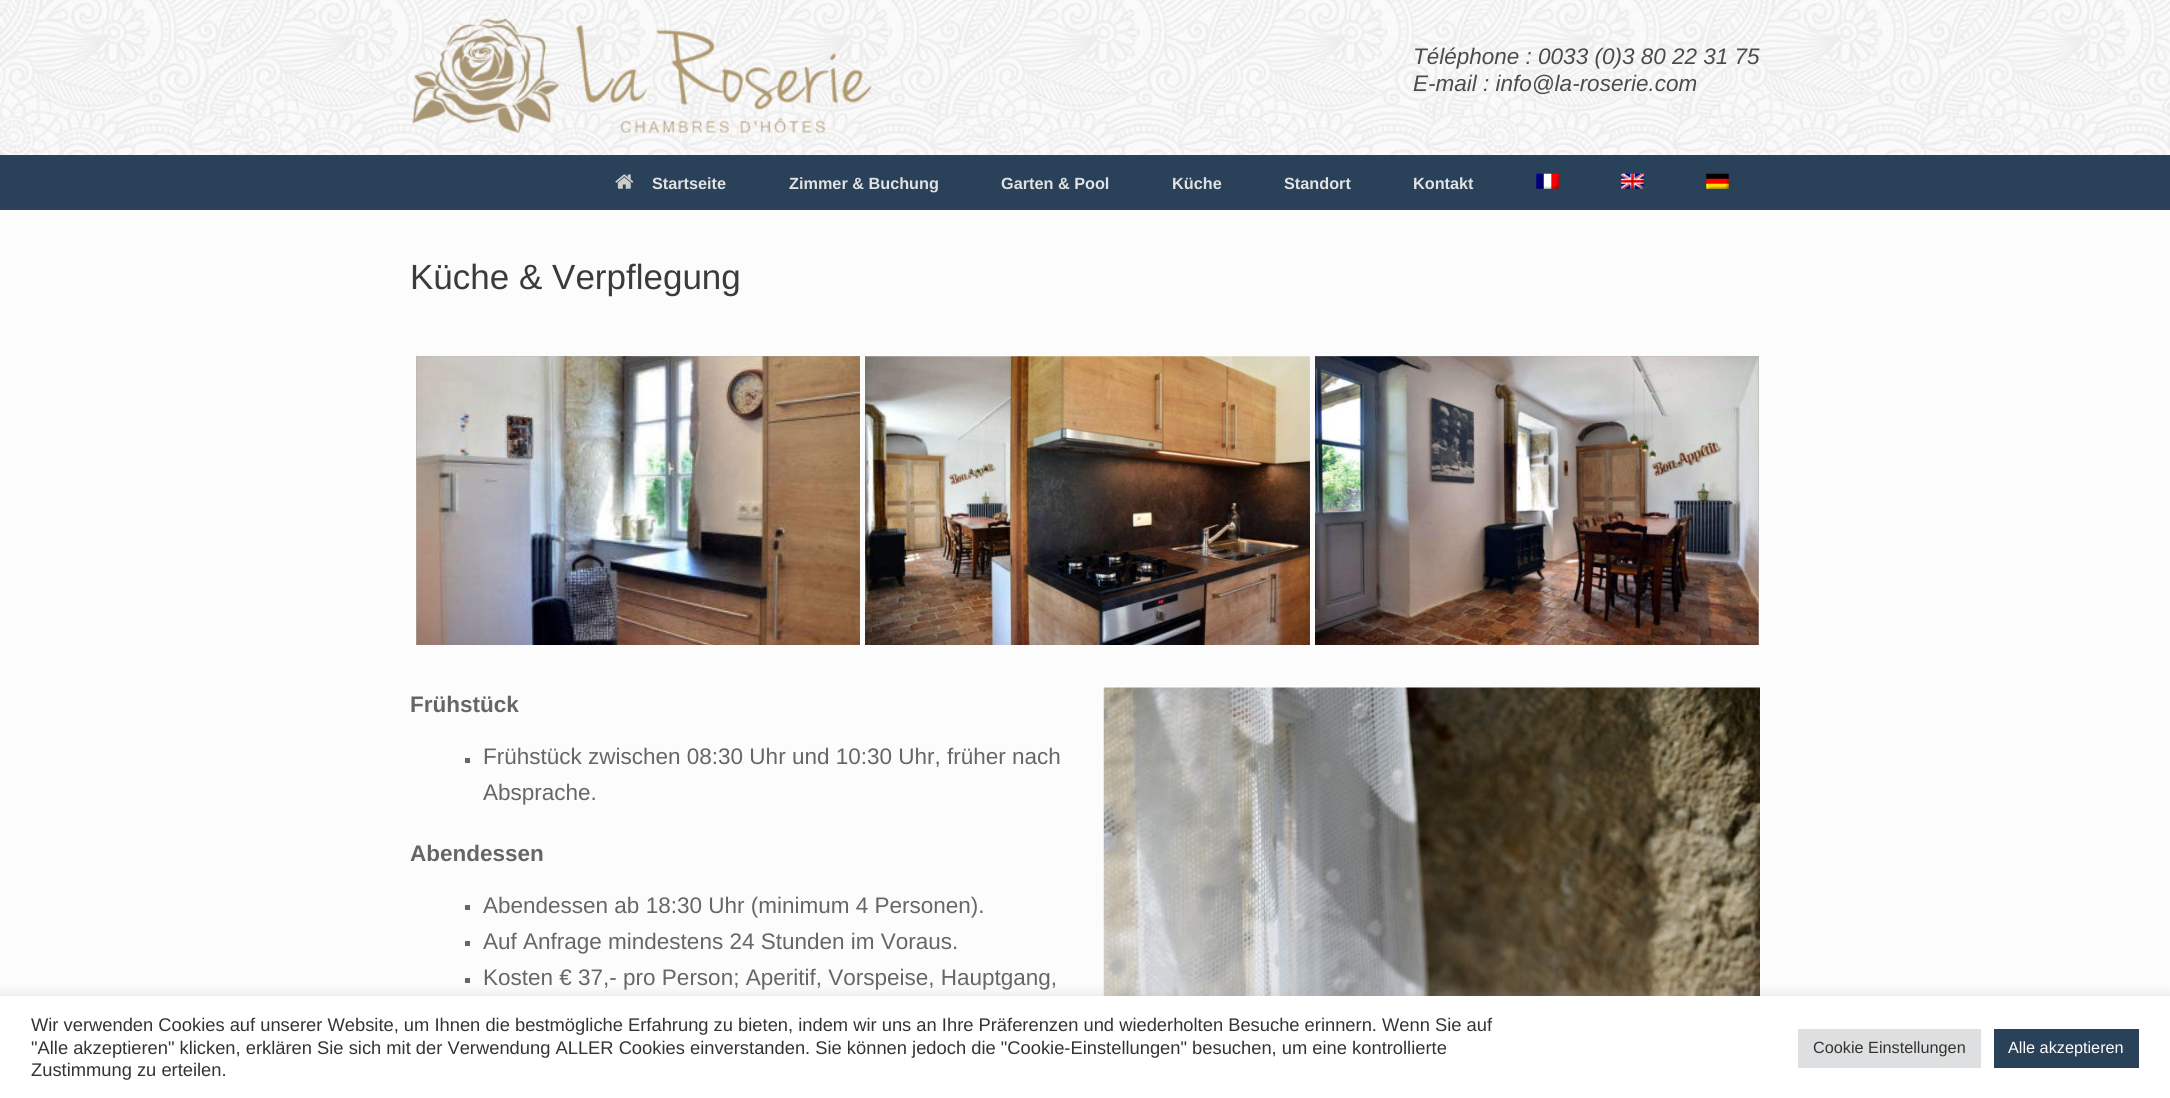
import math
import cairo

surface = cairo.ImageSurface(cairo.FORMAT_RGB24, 2170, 1098)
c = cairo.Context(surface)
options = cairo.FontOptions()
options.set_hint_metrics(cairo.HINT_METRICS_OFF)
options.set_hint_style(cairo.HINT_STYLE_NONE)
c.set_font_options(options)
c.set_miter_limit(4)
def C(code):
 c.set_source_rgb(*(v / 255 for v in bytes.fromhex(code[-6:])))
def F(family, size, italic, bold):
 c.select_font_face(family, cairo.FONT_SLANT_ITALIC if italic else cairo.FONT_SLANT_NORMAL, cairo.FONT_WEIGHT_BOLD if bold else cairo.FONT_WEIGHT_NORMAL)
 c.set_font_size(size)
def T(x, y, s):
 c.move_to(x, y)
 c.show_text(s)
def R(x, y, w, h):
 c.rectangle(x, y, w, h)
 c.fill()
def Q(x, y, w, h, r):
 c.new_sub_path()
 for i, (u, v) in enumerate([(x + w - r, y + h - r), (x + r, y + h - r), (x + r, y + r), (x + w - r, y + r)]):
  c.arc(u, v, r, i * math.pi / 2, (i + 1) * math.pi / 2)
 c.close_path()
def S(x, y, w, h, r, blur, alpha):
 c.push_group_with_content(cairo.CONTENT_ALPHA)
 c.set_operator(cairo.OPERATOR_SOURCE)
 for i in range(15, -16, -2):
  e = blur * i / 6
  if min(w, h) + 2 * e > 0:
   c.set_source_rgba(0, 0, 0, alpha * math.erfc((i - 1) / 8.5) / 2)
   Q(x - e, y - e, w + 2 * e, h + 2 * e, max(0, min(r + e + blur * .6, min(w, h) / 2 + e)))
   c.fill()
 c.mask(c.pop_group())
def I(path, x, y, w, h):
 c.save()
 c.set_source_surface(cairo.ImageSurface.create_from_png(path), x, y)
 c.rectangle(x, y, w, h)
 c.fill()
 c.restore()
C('ffffff')
c.paint()
I('1.png',0,0,2170,155)
I('2.png',412,18,460,115)
F('Liberation Sans',22.5,1,0)
C('4b4b4b')
T(1413,64,'Téléphone : 0033 (0)3 80 22 31 75')
T(1413,91,'E-mail : info@la-roserie.com')
C('294159')
R(0,155,2170,55)
I('3.png',615,174,19,15)
F('Liberation Sans',16.25,0,1)
C('e2e2e2')
T(652,189,'Startseite')
T(789,189,'Zimmer & Buchung')
T(1001,189,'Garten & Pool')
T(1172,189,'Küche')
T(1284,189,'Standort')
T(1413,189,'Kontakt')
I('4.png',1536,173,23,16)
I('5.png',1621,173,23,16)
I('6.png',1706,173,23,16)
C('fcfcfc')
R(0,210,2170,786)
F('Liberation Sans',35,0,0)
C('3b3b3b')
T(410,289,'Küche & Verpflegung')
C('b0b0b0')
R(416,356,444,289)
I('7.png',416,356,444,289)
I('8.png',865,356,445,289)
R(1315,356,444,289)
I('9.png',1315,356,444,289)
F('Liberation Sans',22.5,0,1)
C('666666')
T(410,712,'Frühstück')
R(465,758,5,5)
F('Liberation Sans',22.5,0,0)
T(483,764,'Frühstück zwischen 08:30 Uhr und 10:30 Uhr, früher nach')
T(483,800,'Absprache.')
F('Liberation Sans',22.5,0,1)
T(410,861,'Abendessen')
R(465,905,5,5)
F('Liberation Sans',22.5,0,0)
T(483,913,'Abendessen ab 18:30 Uhr (minimum 4 Personen).')
R(465,941,5,5)
T(483,949,'Auf Anfrage mindestens 24 Stunden im Voraus.')
R(465,978,5,5)
T(483,985,'Kosten € 37,- pro Person; Aperitif, Vorspeise, Hauptgang,')
I('10.png',1103,687,657,309)
C('acabab')
S(0,995,2170,103,0,6,.3)
C('ffffff')
R(0,996,2170,102)
F('Liberation Sans',18.33,0,0)
C('333333')
T(31,1031,'Wir verwenden Cookies auf unserer Website, um Ihnen die bestmögliche Erfahrung zu bieten, indem wir uns an Ihre Präferenzen und wiederholten Besuche erinnern. Wenn Sie auf')
T(31,1054,'"Alle akzeptieren" klicken, erklären Sie sich mit der Verwendung ALLER Cookies einverstanden. Sie können jedoch die "Cookie-Einstellungen" besuchen, um eine kontrollierte')
T(31,1076,'Zustimmung zu erteilen.')
C('dedfe0')
R(1798,1029,183,39)
F('Liberation Sans',16.25,0,0)
C('333333')
T(1813,1053,'Cookie Einstellungen')
C('294159')
R(1994,1029,145,39)
C('ffffff')
T(2008,1053,'Alle akzeptieren')
surface.write_to_png('o.png')
